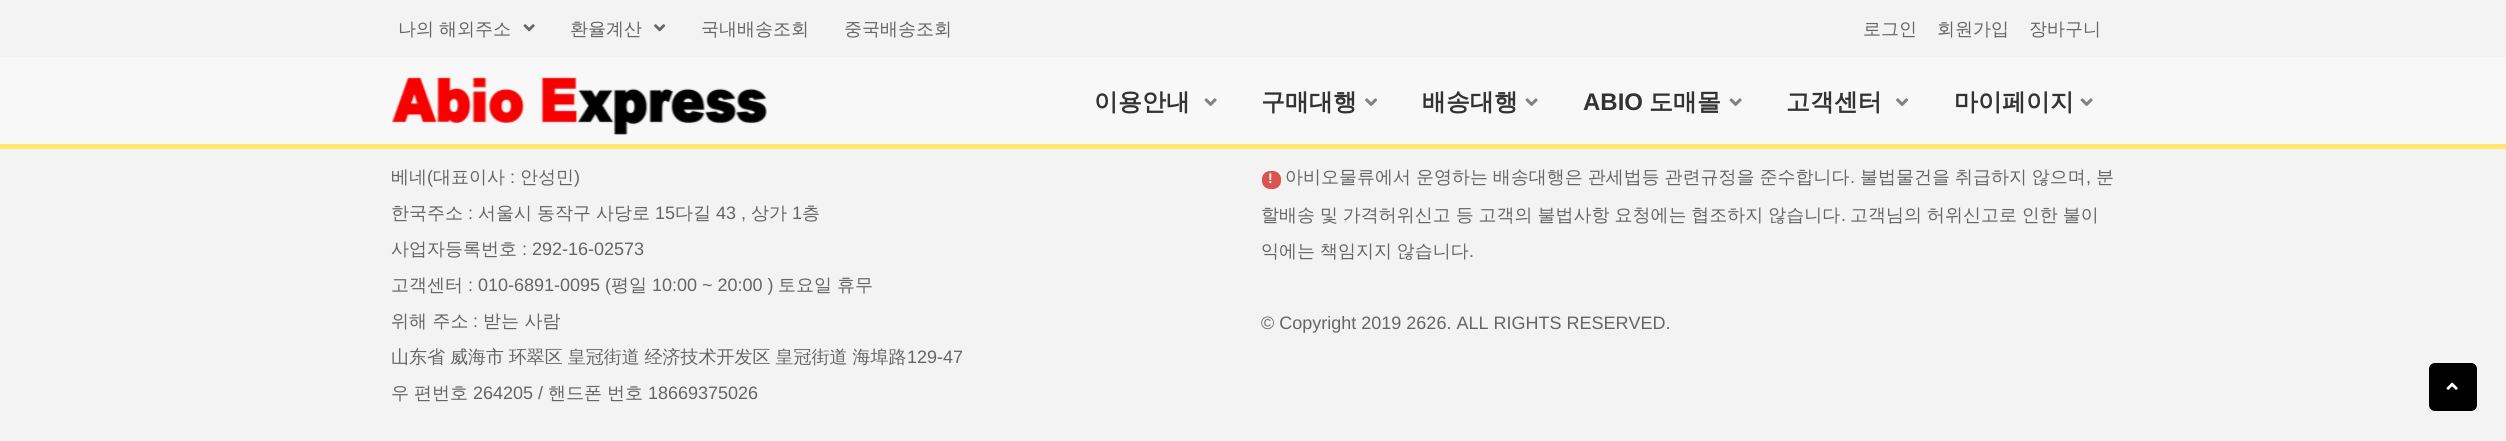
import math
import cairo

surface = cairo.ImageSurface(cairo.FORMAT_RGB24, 2506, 441)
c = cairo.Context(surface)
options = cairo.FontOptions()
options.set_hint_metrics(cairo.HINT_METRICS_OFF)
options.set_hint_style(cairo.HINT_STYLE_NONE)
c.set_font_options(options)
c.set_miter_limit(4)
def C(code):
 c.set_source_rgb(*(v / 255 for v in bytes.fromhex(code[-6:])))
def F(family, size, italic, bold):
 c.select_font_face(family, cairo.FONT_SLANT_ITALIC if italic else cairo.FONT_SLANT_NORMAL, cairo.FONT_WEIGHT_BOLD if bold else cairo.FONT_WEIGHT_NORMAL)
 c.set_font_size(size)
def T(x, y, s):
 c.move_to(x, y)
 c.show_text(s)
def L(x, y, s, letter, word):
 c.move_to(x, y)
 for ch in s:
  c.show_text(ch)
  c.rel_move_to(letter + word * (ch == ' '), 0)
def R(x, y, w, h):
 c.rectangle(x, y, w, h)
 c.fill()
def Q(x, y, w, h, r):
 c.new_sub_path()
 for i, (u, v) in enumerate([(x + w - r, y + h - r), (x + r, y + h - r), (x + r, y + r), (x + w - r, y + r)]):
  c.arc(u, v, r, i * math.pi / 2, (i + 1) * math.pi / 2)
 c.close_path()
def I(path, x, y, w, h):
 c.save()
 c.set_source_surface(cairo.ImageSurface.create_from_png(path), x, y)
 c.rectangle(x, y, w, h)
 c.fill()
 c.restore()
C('f3f3f3')
c.paint()
C('f8f8f8')
R(0,57,2506,87)
C('ffe671')
R(0,144,2506,5)
F('WenQuanYi Zen Hei Medium',18,0,0)
C('656565')
L(398,35,'나의 해외주소',0,-.5)
I('1.png',523,24,12,8)
T(570,35,'환율계산')
I('2.png',654,24,12,8)
T(701,35,'국내배송조회')
T(844,35,'중국배송조회')
T(1863,35,'로그인')
T(1937,35,'회원가입')
T(2029,35,'장바구니')
I('3.png',391,77,376,58)
F('WenQuanYi Zen Hei',24,0,1)
C('333333')
T(1094,110,'이용안내')
I('4.png',1204,98,13,8)
T(1261,110,'구매대행')
I('5.png',1365,98,13,8)
T(1422,110,'배송대행')
I('4.png',1525,98,13,8)
F('Liberation Sans',24,0,1)
T(1583,110,'ABIO')
F('WenQuanYi Zen Hei',24,0,1)
T(1649,110,'도매몰')
I('4.png',1729,98,13,8)
T(1786,110,'고객센터')
I('5.png',1896,98,13,8)
T(1954,110,'마이페이지')
I('4.png',2080,98,13,8)
F('WenQuanYi Zen Hei Medium',18,0,0)
C('656565')
T(391,183,'베네')
F('Liberation Sans',18,0,0)
T(427,183,'(')
F('WenQuanYi Zen Hei Medium',18,0,0)
T(433,183,'대표이사')
F('Liberation Sans',18,0,0)
T(510,183,':')
F('WenQuanYi Zen Hei Medium',18,0,0)
T(520,183,'안성민')
F('Liberation Sans',18,0,0)
T(574,183,')')
F('WenQuanYi Zen Hei Medium',18,0,0)
T(391,219,'한국주소')
F('Liberation Sans',18,0,0)
T(468,219,':')
F('WenQuanYi Zen Hei Medium',18,0,0)
T(478,219,'서울시')
T(537,219,'동작구')
T(596,219,'사당로')
F('Liberation Sans',18,0,0)
T(655,219,'15')
F('WenQuanYi Zen Hei Medium',18,0,0)
T(675,219,'다길')
F('Liberation Sans',18,0,0)
T(716,219,'43 ,')
F('WenQuanYi Zen Hei Medium',18,0,0)
T(751,219,'상가')
F('Liberation Sans',18,0,0)
T(792,219,'1')
F('WenQuanYi Zen Hei Medium',18,0,0)
T(802,219,'층')
T(391,255,'사업자등록번호')
F('Liberation Sans',18,0,0)
T(522,255,': 292-16-02573')
F('WenQuanYi Zen Hei Medium',18,0,0)
T(391,291,'고객센터')
F('Liberation Sans',18,0,0)
T(468,291,': 010-6891-0095 (')
F('WenQuanYi Zen Hei Medium',18,0,0)
T(611,291,'평일')
F('Liberation Sans',18,0,0)
T(652,291,'10:00 ~ 20:00 )')
F('WenQuanYi Zen Hei Medium',18,0,0)
T(778,291,'토요일')
T(837,291,'휴무')
T(391,327,'위해 주소')
F('Liberation Sans',18,0,0)
T(473,327,':')
F('WenQuanYi Zen Hei Medium',18,0,0)
T(483,327,'받는 사람')
L(391,363,'山东省 威海市 环翠区 皇冠街道 经济技术开发区 皇冠街道 海埠路',0,-.5)
F('Liberation Sans',18,0,0)
T(907,363,'129-47')
F('WenQuanYi Zen Hei Medium',18,0,0)
T(391,399,'우')
T(414,399,'편번호')
F('Liberation Sans',18,0,0)
T(473,399,'264205 /')
F('WenQuanYi Zen Hei Medium',18,0,0)
T(548,399,'핸드폰')
T(607,399,'번호')
F('Liberation Sans',18,0,0)
T(648,399,'18669375026')
C('d9534f')
Q(1262,171,19,18,8)
c.fill()
F('Liberation Sans',14,0,1)
C('ffffff')
T(1268,183,'!')
F('WenQuanYi Zen Hei Medium',18,0,0)
C('656565')
L(1285,183,'아비오물류에서 운영하는 배송대행은 관세법등 관련규정을 준수합니다',0,-.5)
F('Liberation Sans',18,0,0)
T(1850,183,'.')
F('WenQuanYi Zen Hei Medium',18,0,0)
L(1860,183,'불법물건을 취급하지 않으며',0,-.5)
F('Liberation Sans',18,0,0)
T(2086,183,',')
F('WenQuanYi Zen Hei Medium',18,0,0)
T(2096,183,'분')
L(1261,221,'할배송 및 가격허위신고 등 고객의 불법사항 요청에는 협조하지 않습니다',0,-.5)
F('Liberation Sans',18,0,0)
T(1841,221,'.')
F('WenQuanYi Zen Hei Medium',18,0,0)
L(1850,221,'고객님의 허위신고로 인한 불이',0,-.5)
L(1261,257,'익에는 책임지지 않습니다',0,-.5)
F('Liberation Sans',18,0,0)
T(1469,257,'.')
T(1261,329,'© Copyright 2019 2626. ALL RIGHTS RESERVED.')
C('000000')
Q(2429,363,48,48,6)
c.fill()
I('6.png',2446,382,12,8)
surface.write_to_png('o.png')
